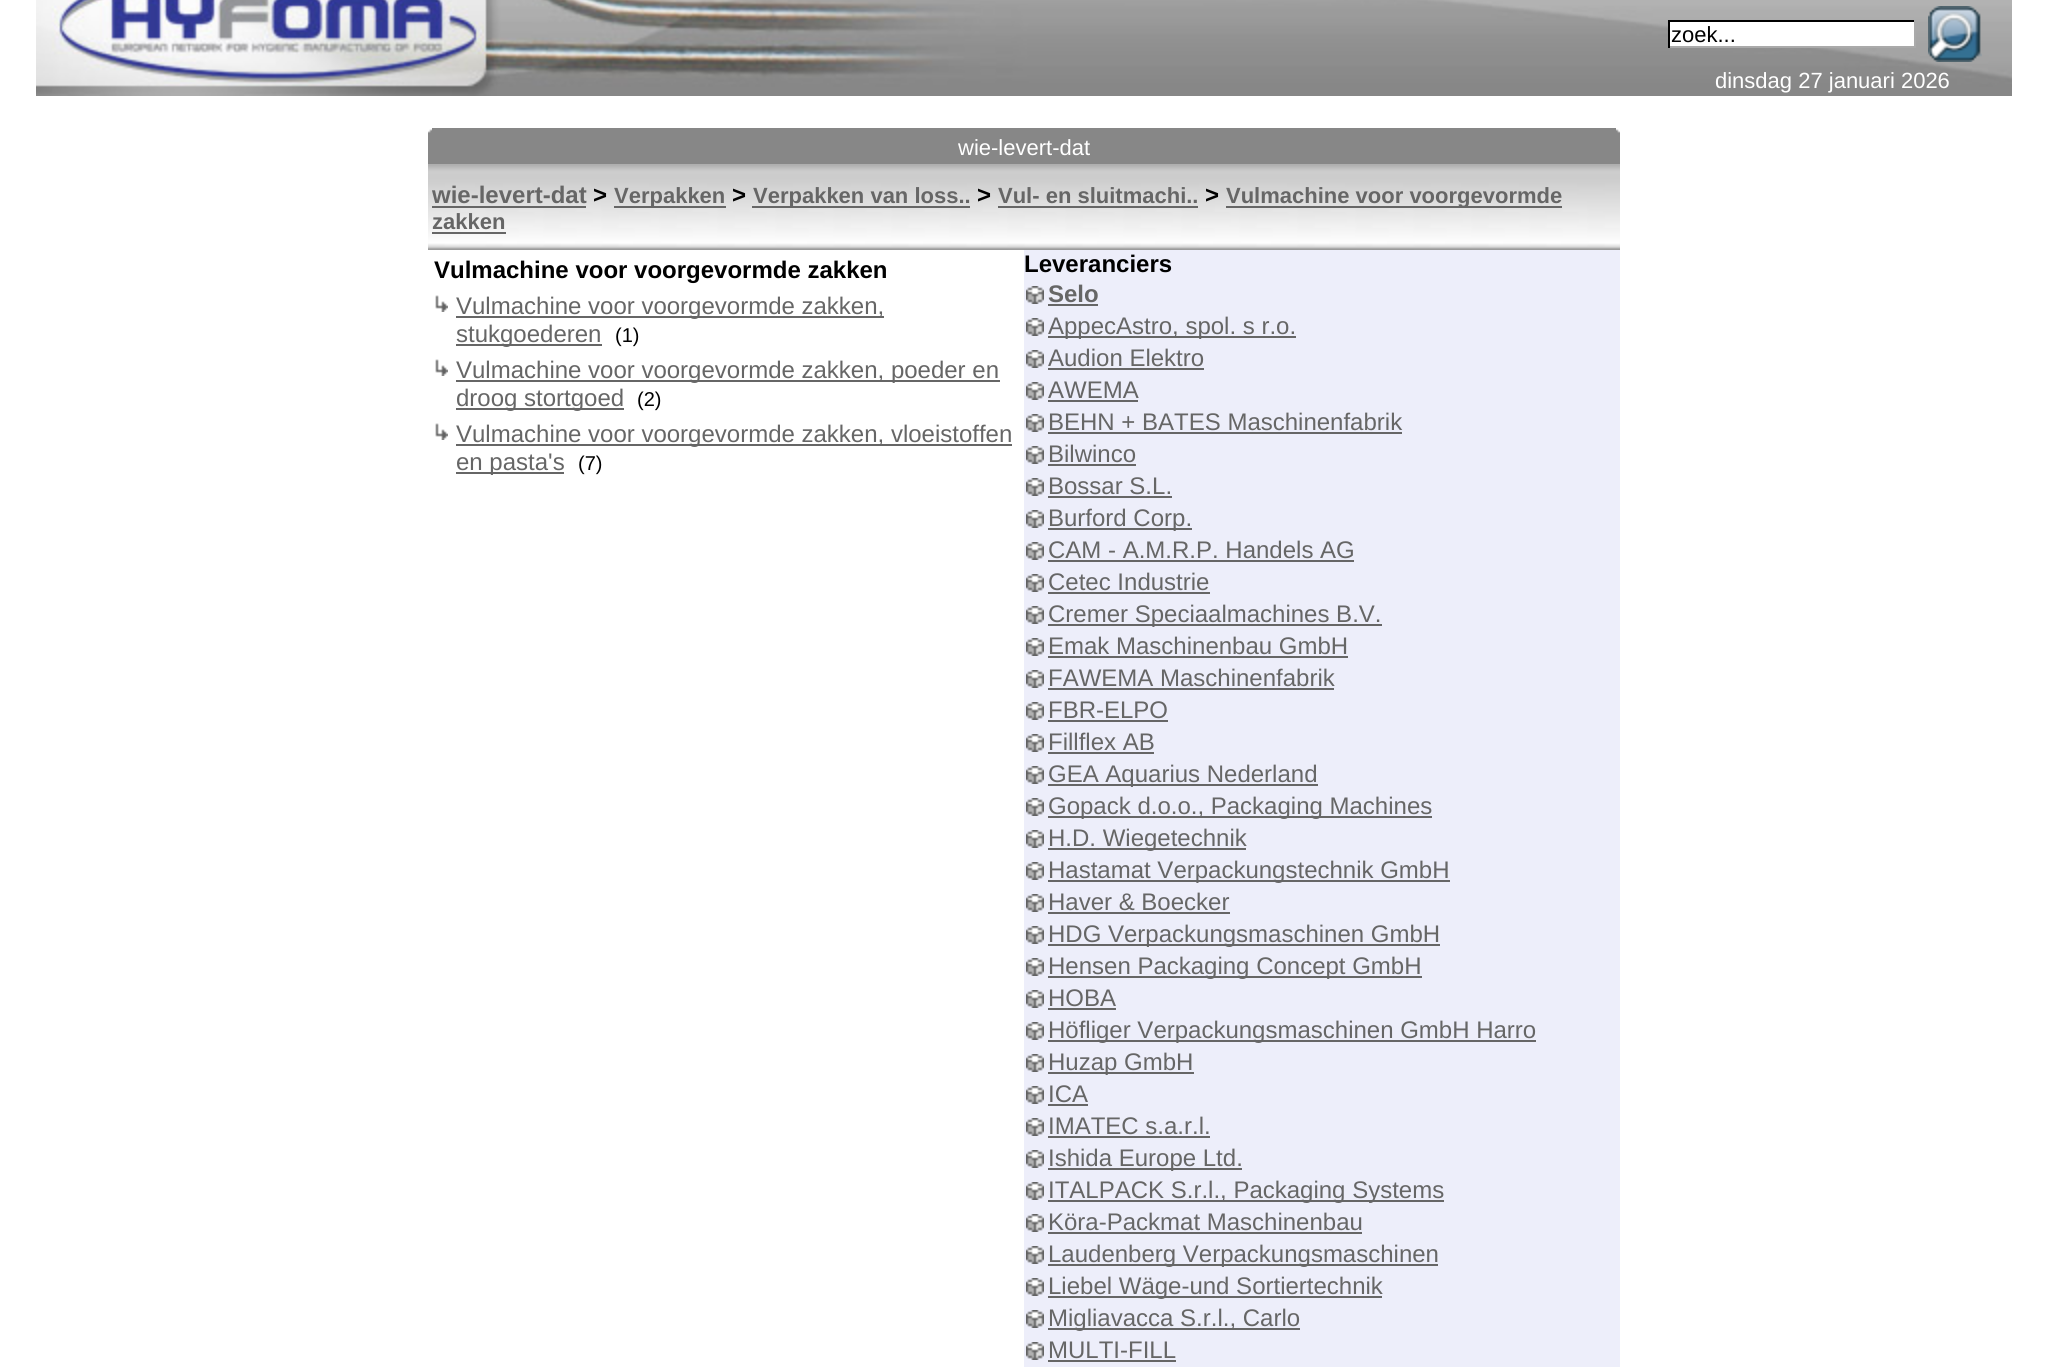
import math
import cairo

surface = cairo.ImageSurface(cairo.FORMAT_RGB24, 2047, 1367)
c = cairo.Context(surface)
options = cairo.FontOptions()
options.set_hint_metrics(cairo.HINT_METRICS_OFF)
options.set_hint_style(cairo.HINT_STYLE_NONE)
c.set_font_options(options)
c.set_miter_limit(4)
def C(code):
 c.set_source_rgb(*(v / 255 for v in bytes.fromhex(code[-6:])))
def F(family, size, italic, bold):
 c.select_font_face(family, cairo.FONT_SLANT_ITALIC if italic else cairo.FONT_SLANT_NORMAL, cairo.FONT_WEIGHT_BOLD if bold else cairo.FONT_WEIGHT_NORMAL)
 c.set_font_size(size)
def T(x, y, s):
 c.move_to(x, y)
 c.show_text(s)
def R(x, y, w, h):
 c.rectangle(x, y, w, h)
 c.fill()
def I(path, x, y, w, h):
 c.save()
 c.set_source_surface(cairo.ImageSurface.create_from_png(path), x, y)
 c.rectangle(x, y, w, h)
 c.fill()
 c.restore()
C('ffffff')
c.paint()
I('1.png',36,0,1976,96)
C('ffffff')
R(1670,22,244,24)
C('000000')
R(1668,20,248,2)
C('aaaaaa')
R(1914,20,2,28)
R(1668,46,248,2)
C('000000')
R(1668,20,2,28)
F('Liberation Sans',22,0,0)
T(1671,42,'zoek...')
I('2.png',1928,6,54,56)
C('ffffff')
T(1715,88,'dinsdag 27 januari 2026')
I('3.png',428,129,4,35)
C('878787')
R(432,128,1184,36)
C('ffffff')
T(958,155,'wie-levert-dat')
I('4.png',1616,129,4,35)
I('5.png',428,164,1192,86)
F('Liberation Sans',24,0,1)
C('666666')
T(432,203,'wie-levert-dat')
R(432,206,154,2)
C('000000')
T(593,203,'>')
C('666666')
R(614,206,112,2)
F('Liberation Sans',22,0,1)
T(614,203,'Verpakken')
F('Liberation Sans',24,0,1)
C('000000')
T(732,203,'>')
C('666666')
R(752,206,218,2)
F('Liberation Sans',22,0,1)
T(753,203,'Verpakken van loss..')
F('Liberation Sans',24,0,1)
C('000000')
T(977,203,'>')
F('Liberation Sans',22,0,1)
C('666666')
T(998,203,'Vul- en sluitmachi..')
R(998,206,200,2)
F('Liberation Sans',24,0,1)
C('000000')
T(1205,203,'>')
C('666666')
R(1226,206,336,2)
F('Liberation Sans',22,0,1)
T(1226,203,'Vulmachine voor voorgevormde')
T(432,229,'zakken')
R(432,232,74,2)
F('Liberation Sans',24,0,1)
C('000000')
T(434,278,'Vulmachine voor voorgevormde zakken')
I('6.png',435,295,13,17)
C('666666')
R(456,316,428,2)
F('Liberation Sans',24,0,0)
T(456,314,'Vulmachine voor voorgevormde zakken,')
R(456,344,146,2)
T(456,342,'stukgoederen')
F('Liberation Sans',20,0,0)
C('000000')
T(615,342,'(1)')
I('6.png',435,359,13,17)
C('666666')
R(456,380,544,2)
F('Liberation Sans',24,0,0)
T(456,378,'Vulmachine voor voorgevormde zakken, poeder en')
R(456,408,168,2)
T(456,406,'droog stortgoed')
F('Liberation Sans',20,0,0)
C('000000')
T(637,406,'(2)')
I('6.png',435,423,13,17)
C('666666')
R(456,444,556,2)
F('Liberation Sans',24,0,0)
T(456,442,'Vulmachine voor voorgevormde zakken, vloeistoffen')
R(456,472,108,2)
T(456,470,'en pasta\'s')
F('Liberation Sans',20,0,0)
C('000000')
T(578,470,'(7)')
C('edeefa')
R(1024,250,596,1117)
F('Liberation Sans',24,0,1)
C('000000')
T(1024,272,'Leveranciers')
I('7.png',1026,286,18,18)
C('666666')
T(1048,302,'Selo')
R(1048,304,50,2)
I('7.png',1026,318,18,18)
R(1048,336,248,2)
F('Liberation Sans',24,0,0)
T(1048,334,'AppecAstro, spol. s r.o.')
I('7.png',1026,350,18,18)
T(1048,366,'Audion Elektro')
R(1048,368,156,2)
I('7.png',1026,382,18,18)
T(1048,398,'AWEMA')
R(1048,400,90,2)
I('7.png',1026,414,18,18)
T(1048,430,'BEHN + BATES Maschinenfabrik')
R(1048,432,354,2)
I('7.png',1026,446,18,18)
T(1048,462,'Bilwinco')
R(1048,464,88,2)
I('7.png',1026,478,18,18)
T(1048,494,'Bossar S.L.')
R(1048,496,124,2)
I('7.png',1026,510,18,18)
R(1048,528,144,2)
T(1048,526,'Burford Corp.')
I('7.png',1026,542,18,18)
T(1048,558,'CAM - A.M.R.P. Handels AG')
R(1048,560,306,2)
I('7.png',1026,574,18,18)
T(1048,590,'Cetec Industrie')
R(1048,592,162,2)
I('7.png',1026,606,18,18)
R(1048,624,334,2)
T(1048,622,'Cremer Speciaalmachines B.V.')
I('7.png',1026,638,18,18)
T(1048,654,'Emak Maschinenbau GmbH')
R(1048,656,300,2)
I('7.png',1026,670,18,18)
T(1048,686,'FAWEMA Maschinenfabrik')
R(1048,688,286,2)
I('7.png',1026,702,18,18)
T(1048,718,'FBR-ELPO')
R(1048,720,120,2)
I('7.png',1026,734,18,18)
T(1048,750,'Fillflex AB')
R(1048,752,106,2)
I('7.png',1026,766,18,18)
R(1048,784,270,2)
T(1048,782,'GEA Aquarius Nederland')
I('7.png',1026,798,18,18)
R(1048,816,384,2)
T(1048,814,'Gopack d.o.o., Packaging Machines')
I('7.png',1026,830,18,18)
R(1048,848,198,2)
T(1048,846,'H.D. Wiegetechnik')
I('7.png',1026,862,18,18)
R(1048,880,402,2)
T(1048,878,'Hastamat Verpackungstechnik GmbH')
I('7.png',1026,894,18,18)
T(1048,910,'Haver & Boecker')
R(1048,912,182,2)
I('7.png',1026,926,18,18)
R(1048,944,392,2)
T(1048,942,'HDG Verpackungsmaschinen GmbH')
I('7.png',1026,958,18,18)
R(1048,976,374,2)
T(1048,974,'Hensen Packaging Concept GmbH')
I('7.png',1026,990,18,18)
T(1048,1006,'HOBA')
R(1048,1008,68,2)
I('7.png',1026,1022,18,18)
R(1048,1040,488,2)
T(1048,1038,'Höfliger Verpackungsmaschinen GmbH Harro')
I('7.png',1026,1054,18,18)
R(1048,1072,146,2)
T(1048,1070,'Huzap GmbH')
I('7.png',1026,1086,18,18)
T(1048,1102,'ICA')
R(1048,1104,40,2)
I('7.png',1026,1118,18,18)
T(1048,1134,'IMATEC s.a.r.l.')
R(1048,1136,162,2)
I('7.png',1026,1150,18,18)
R(1048,1168,194,2)
T(1048,1166,'Ishida Europe Ltd.')
I('7.png',1026,1182,18,18)
R(1048,1200,396,2)
T(1048,1198,'ITALPACK S.r.l., Packaging Systems')
I('7.png',1026,1214,18,18)
T(1048,1230,'Köra-Packmat Maschinenbau')
R(1048,1232,314,2)
I('7.png',1026,1246,18,18)
R(1048,1264,390,2)
T(1048,1262,'Laudenberg Verpackungsmaschinen')
I('7.png',1026,1278,18,18)
R(1048,1296,334,2)
T(1048,1294,'Liebel Wäge-und Sortiertechnik')
I('7.png',1026,1310,18,18)
R(1048,1328,252,2)
T(1048,1326,'Migliavacca S.r.l., Carlo')
I('7.png',1026,1342,18,18)
T(1048,1358,'MULTI-FILL')
R(1048,1360,128,2)
surface.write_to_png('o.png')
